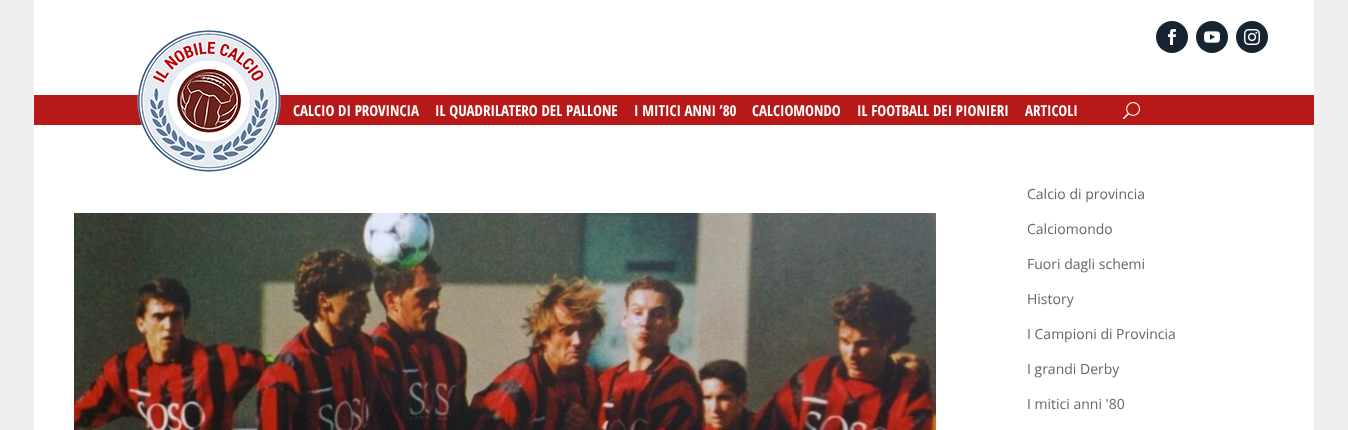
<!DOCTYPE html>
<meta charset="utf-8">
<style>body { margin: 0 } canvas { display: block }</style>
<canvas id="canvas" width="1348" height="430"></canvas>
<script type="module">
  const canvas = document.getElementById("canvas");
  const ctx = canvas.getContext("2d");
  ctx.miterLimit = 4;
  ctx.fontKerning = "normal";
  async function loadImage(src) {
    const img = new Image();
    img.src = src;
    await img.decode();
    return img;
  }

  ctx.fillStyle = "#efefef";
  ctx.fillRect(0, 0, 1348, 430);
  ctx.fillStyle = "#ffffff";
  ctx.fillRect(34, 0, 1280, 430);
  ctx.fillStyle = "#b61918";
  ctx.fillRect(34, 95, 1280, 30);
  ctx.drawImage(await loadImage("img1.png"), 137, 30, 144, 142);
  ctx.font = "bold 15px Open Sans Condensed";
  ctx.fillStyle = "#ffffff";
  ctx.fillText("CALCIO DI PROVINCIA", 293, 116);
  ctx.fillText("IL QUADRILATERO DEL PALLONE", 435, 116);
  ctx.fillText("I MITICI ANNI ’80", 634, 116);
  ctx.fillText("CALCIOMONDO", 752, 116);
  ctx.fillText("IL FOOTBALL DEI PIONIERI", 857, 116);
  ctx.fillText("ARTICOLI", 1025, 116);
  ctx.drawImage(await loadImage("img2.png"), 1123, 102, 17, 18);
  ctx.fillStyle = "#182431";
  ctx.beginPath();
  ctx.arc(1172, 37, 16, 0, Math.PI * 2);
  ctx.fill();
  ctx.drawImage(await loadImage("img3.png"), 1168, 29, 8, 16);
  ctx.beginPath();
  ctx.arc(1212, 37, 16, 0, Math.PI * 2);
  ctx.fill();
  ctx.drawImage(await loadImage("img4.png"), 1204, 31, 16, 12);
  ctx.beginPath();
  ctx.arc(1252, 37, 16, 0, Math.PI * 2);
  ctx.fill();
  ctx.drawImage(await loadImage("img5.png"), 1244, 29, 16, 16);
  ctx.drawImage(await loadImage("img6.png"), 74, 213, 862, 217);
  ctx.font = "14px Open Sans";
  ctx.fillStyle = "#666666";
  ctx.fillText("Calcio di provincia", 1027, 199);
  ctx.fillText("Calciomondo", 1027, 234);
  ctx.fillText("Fuori dagli schemi", 1027, 269);
  ctx.fillText("History", 1027, 304);
  ctx.fillText("I Campioni di Provincia", 1027, 339);
  ctx.fillText("I grandi Derby", 1027, 374);
  ctx.fillText("I mitici anni '80", 1027, 409);
</script>
